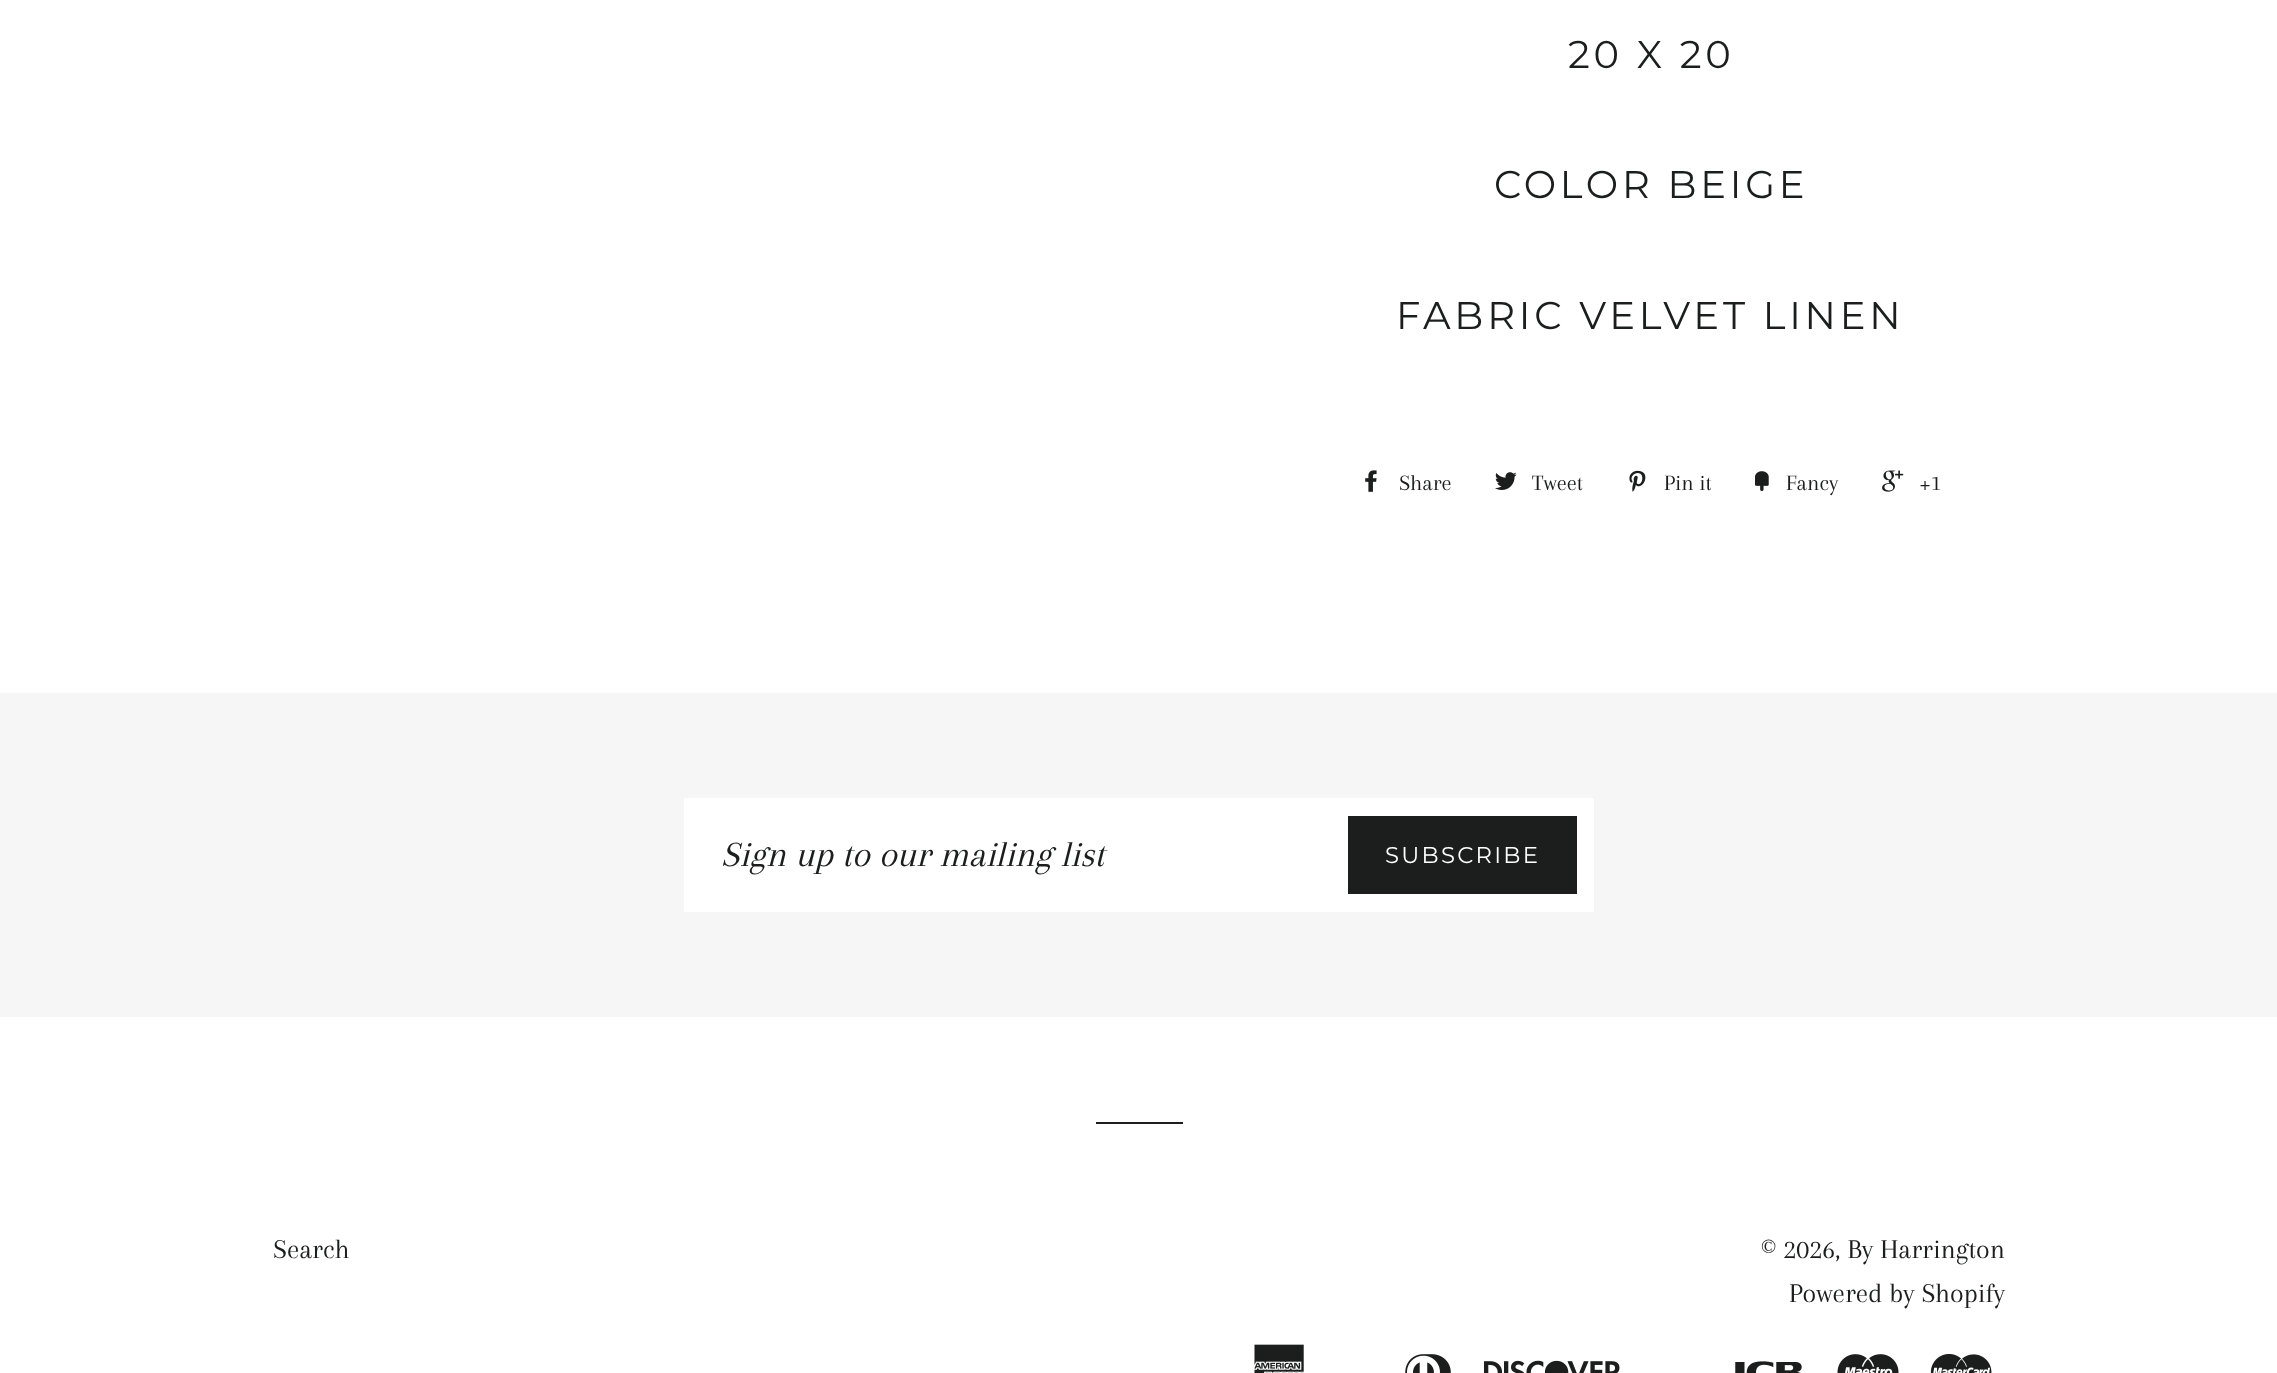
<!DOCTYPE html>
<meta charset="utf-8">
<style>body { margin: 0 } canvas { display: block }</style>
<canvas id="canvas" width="2277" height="1373"></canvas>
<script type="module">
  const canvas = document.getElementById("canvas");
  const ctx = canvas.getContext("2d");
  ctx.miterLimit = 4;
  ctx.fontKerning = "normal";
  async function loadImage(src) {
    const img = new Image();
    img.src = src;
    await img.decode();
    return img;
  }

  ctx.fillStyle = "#ffffff";
  ctx.fillRect(0, 0, 2277, 1373);
  ctx.letterSpacing = "3.8px";
  ctx.font = "100 38.5px Montserrat";
  ctx.fillStyle = "#1c1d1d";
  ctx.fillText("20 X 20", 1568, 68);
  ctx.fillText("COLOR BEIGE", 1494, 198);
  ctx.fillText("FABRIC VELVET LINEN", 1396, 329);
  ctx.drawImage(await loadImage("img1.png"), 1365, 470, 12, 22);
  ctx.letterSpacing = "0px";
  ctx.font = "22.75px Arapey";
  ctx.fillText("Share", 1399, 490);
  ctx.drawImage(await loadImage("img2.png"), 1495, 472, 22, 18);
  ctx.fillText("Tweet", 1532, 490);
  ctx.drawImage(await loadImage("img3.png"), 1629, 470, 17, 22);
  ctx.fillText("Pin it", 1664, 490);
  ctx.drawImage(await loadImage("img4.png"), 1755, 471, 14, 20);
  ctx.fillText("Fancy", 1786, 490);
  ctx.drawImage(await loadImage("img5.png"), 1882, 470, 22, 22);
  ctx.fillText("+1", 1919, 490);
  ctx.fillStyle = "#f6f6f6";
  ctx.fillRect(0, 693, 2277, 324);
  ctx.fillStyle = "#ffffff";
  ctx.fillRect(684, 798, 910, 114);
  ctx.font = "italic 36.75px Arapey";
  ctx.fillStyle = "#1c1d1d";
  ctx.fillText("Sign up to our mailing list", 721, 866);
  ctx.fillRect(1348, 816, 229, 78);
  ctx.letterSpacing = "2.25px";
  ctx.font = "100 22.75px Montserrat";
  ctx.fillStyle = "#ffffff";
  ctx.fillText("SUBSCRIBE", 1385, 863);
  ctx.fillStyle = "#1c1d1d";
  ctx.fillRect(1096, 1122, 87, 2);
  ctx.letterSpacing = "0px";
  ctx.font = "28px Arapey";
  ctx.fillText("Search", 273, 1258);
  ctx.fillText("© 2026, By Harrington", 1761, 1258);
  ctx.fillText("Powered by Shopify", 1789, 1302);
  ctx.drawImage(await loadImage("img6.png"), 1254, 1344, 50, 29);
  ctx.drawImage(await loadImage("img7.png"), 1405, 1354, 46, 19);
  ctx.drawImage(await loadImage("img8.png"), 1484, 1360, 136, 13);
  ctx.drawImage(await loadImage("img9.png"), 1735, 1361, 67, 12);
  ctx.drawImage(await loadImage("img10.png"), 1837, 1354, 62, 19);
  ctx.drawImage(await loadImage("img11.png"), 1930, 1354, 62, 19);
</script>
